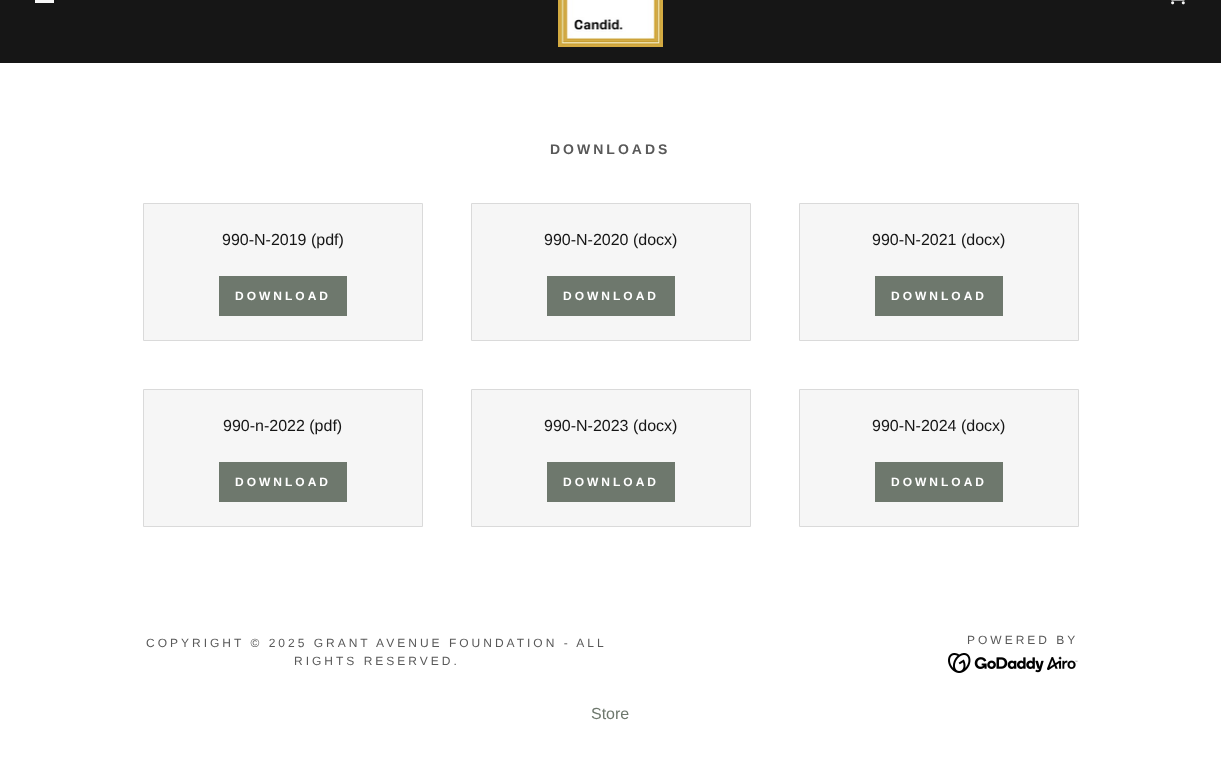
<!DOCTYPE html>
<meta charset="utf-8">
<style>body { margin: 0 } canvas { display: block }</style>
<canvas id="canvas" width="1221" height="760"></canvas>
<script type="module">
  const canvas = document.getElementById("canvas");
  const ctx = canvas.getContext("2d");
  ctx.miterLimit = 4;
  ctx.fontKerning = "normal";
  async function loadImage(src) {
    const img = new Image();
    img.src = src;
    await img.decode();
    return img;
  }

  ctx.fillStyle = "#ffffff";
  ctx.fillRect(0, 0, 1221, 760);
  ctx.fillStyle = "#161616";
  ctx.fillRect(0, 0, 1221, 63);
  ctx.fillStyle = "#f7f7f7";
  ctx.fillRect(35, 0, 19, 3);
  ctx.drawImage(await loadImage("img1.png"), 558, 0, 105, 47);
  ctx.drawImage(await loadImage("img2.png"), 1171, 0, 14, 5);
  ctx.letterSpacing = "3px";
  ctx.font = "bold 14px Liberation Sans";
  ctx.fillStyle = "#595959";
  ctx.fillText("DOWNLOADS", 550, 154);
  ctx.fillStyle = "#f6f6f6";
  ctx.beginPath();
  ctx.rect(143.5, 203.5, 279, 137);
  ctx.fill();
  ctx.strokeStyle = "#dadada";
  ctx.stroke();
  ctx.letterSpacing = "0px";
  ctx.font = "16px Liberation Sans";
  ctx.fillStyle = "#151515";
  ctx.fillText("990-N-2019 (pdf)", 222, 245);
  ctx.fillStyle = "#6e786d";
  ctx.fillRect(219, 276, 128, 40);
  ctx.letterSpacing = "3px";
  ctx.font = "bold 12px Liberation Sans";
  ctx.fillStyle = "#ffffff";
  ctx.fillText("DOWNLOAD", 235, 300);
  ctx.fillStyle = "#f6f6f6";
  ctx.beginPath();
  ctx.rect(471.5, 203.5, 279, 137);
  ctx.fill();
  ctx.stroke();
  ctx.letterSpacing = "0px";
  ctx.font = "16px Liberation Sans";
  ctx.fillStyle = "#151515";
  ctx.fillText("990-N-2020 (docx)", 544, 245);
  ctx.fillStyle = "#6e786d";
  ctx.fillRect(547, 276, 128, 40);
  ctx.letterSpacing = "3px";
  ctx.font = "bold 12px Liberation Sans";
  ctx.fillStyle = "#ffffff";
  ctx.fillText("DOWNLOAD", 563, 300);
  ctx.fillStyle = "#f6f6f6";
  ctx.beginPath();
  ctx.rect(799.5, 203.5, 279, 137);
  ctx.fill();
  ctx.stroke();
  ctx.letterSpacing = "0px";
  ctx.font = "16px Liberation Sans";
  ctx.fillStyle = "#151515";
  ctx.fillText("990-N-2021 (docx)", 872, 245);
  ctx.fillStyle = "#6e786d";
  ctx.fillRect(875, 276, 128, 40);
  ctx.letterSpacing = "3px";
  ctx.font = "bold 12px Liberation Sans";
  ctx.fillStyle = "#ffffff";
  ctx.fillText("DOWNLOAD", 891, 300);
  ctx.fillStyle = "#f6f6f6";
  ctx.beginPath();
  ctx.rect(143.5, 389.5, 279, 137);
  ctx.fill();
  ctx.stroke();
  ctx.letterSpacing = "0px";
  ctx.font = "16px Liberation Sans";
  ctx.fillStyle = "#151515";
  ctx.fillText("990-n-2022 (pdf)", 223, 431);
  ctx.fillStyle = "#6e786d";
  ctx.fillRect(219, 462, 128, 40);
  ctx.letterSpacing = "3px";
  ctx.font = "bold 12px Liberation Sans";
  ctx.fillStyle = "#ffffff";
  ctx.fillText("DOWNLOAD", 235, 486);
  ctx.fillStyle = "#f6f6f6";
  ctx.beginPath();
  ctx.rect(471.5, 389.5, 279, 137);
  ctx.fill();
  ctx.stroke();
  ctx.letterSpacing = "0px";
  ctx.font = "16px Liberation Sans";
  ctx.fillStyle = "#151515";
  ctx.fillText("990-N-2023 (docx)", 544, 431);
  ctx.fillStyle = "#6e786d";
  ctx.fillRect(547, 462, 128, 40);
  ctx.letterSpacing = "3px";
  ctx.font = "bold 12px Liberation Sans";
  ctx.fillStyle = "#ffffff";
  ctx.fillText("DOWNLOAD", 563, 486);
  ctx.fillStyle = "#f6f6f6";
  ctx.beginPath();
  ctx.rect(799.5, 389.5, 279, 137);
  ctx.fill();
  ctx.stroke();
  ctx.letterSpacing = "0px";
  ctx.font = "16px Liberation Sans";
  ctx.fillStyle = "#151515";
  ctx.fillText("990-N-2024 (docx)", 872, 431);
  ctx.fillStyle = "#6e786d";
  ctx.fillRect(875, 462, 128, 40);
  ctx.letterSpacing = "3px";
  ctx.font = "bold 12px Liberation Sans";
  ctx.fillStyle = "#ffffff";
  ctx.fillText("DOWNLOAD", 891, 486);
  ctx.font = "12px Liberation Sans";
  ctx.fillStyle = "#595959";
  ctx.fillText("COPYRIGHT © 2025 GRANT AVENUE FOUNDATION - ALL", 146, 647);
  ctx.fillText("RIGHTS RESERVED.", 294, 665);
  ctx.fillText("POWERED BY", 967, 644);
  ctx.drawImage(await loadImage("img3.png"), 948, 653, 130, 20);
  ctx.letterSpacing = "0px";
  ctx.font = "16px Liberation Sans";
  ctx.fillStyle = "#6e786d";
  ctx.fillText("Store", 591, 719);
</script>
